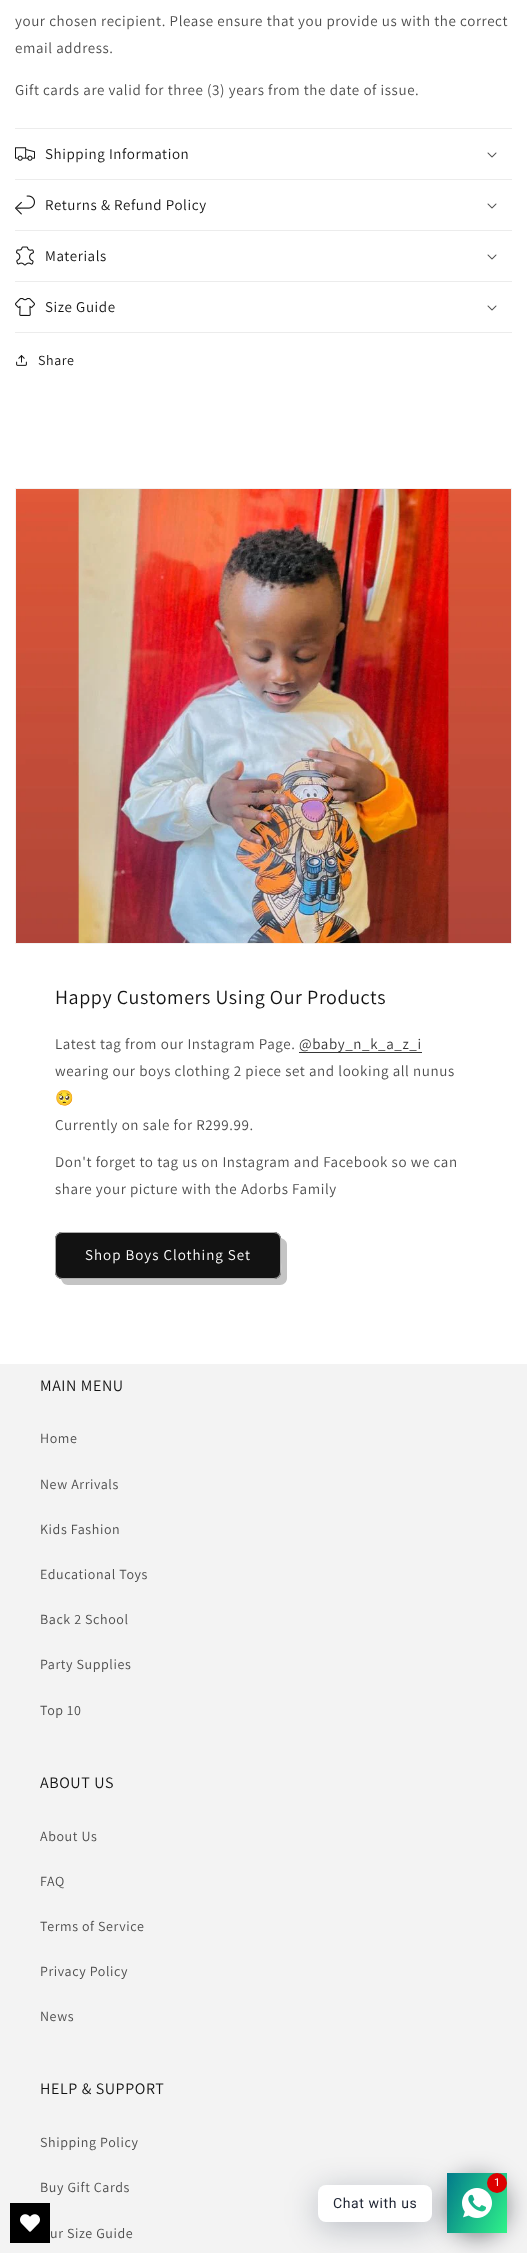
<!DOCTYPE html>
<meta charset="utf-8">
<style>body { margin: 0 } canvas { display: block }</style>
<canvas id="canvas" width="527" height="2253"></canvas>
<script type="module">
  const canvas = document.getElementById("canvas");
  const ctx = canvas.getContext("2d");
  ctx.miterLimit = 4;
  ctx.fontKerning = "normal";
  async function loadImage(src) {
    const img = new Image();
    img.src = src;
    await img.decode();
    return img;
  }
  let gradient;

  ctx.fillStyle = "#ffffff";
  ctx.fillRect(0, 0, 527, 2253);
  ctx.letterSpacing = "0.6px";
  ctx.font = "15px Assistant";
  ctx.fillStyle = "#4d4d4d";
  ctx.fillText("your chosen recipient. Please ensure that you provide us with the correct", 15, 26);
  ctx.fillText("email address.", 15, 53);
  ctx.fillText("Gift cards are valid for three (3) years from the date of issue.", 15, 95);
  ctx.fillStyle = "#ececec";
  ctx.fillRect(15, 128, 497, 1);
  ctx.fillRect(15, 179, 497, 1);
  ctx.drawImage(await loadImage("img1.png"), 15, 147, 20, 14);
  ctx.fillStyle = "#121212";
  ctx.fillText("Shipping Information", 45, 159);
  ctx.drawImage(await loadImage("img2.png"), 487, 152, 10, 6);
  ctx.fillStyle = "#ececec";
  ctx.fillRect(15, 230, 497, 1);
  ctx.drawImage(await loadImage("img3.png"), 15, 195, 20, 20);
  ctx.fillStyle = "#121212";
  ctx.fillText("Returns & Refund Policy", 45, 210);
  ctx.drawImage(await loadImage("img2.png"), 487, 203, 10, 6);
  ctx.fillStyle = "#ececec";
  ctx.fillRect(15, 281, 497, 1);
  ctx.drawImage(await loadImage("img4.png"), 16, 246, 18, 20);
  ctx.fillStyle = "#121212";
  ctx.fillText("Materials", 45, 261);
  ctx.drawImage(await loadImage("img2.png"), 487, 254, 10, 6);
  ctx.fillStyle = "#ececec";
  ctx.fillRect(15, 332, 497, 1);
  ctx.drawImage(await loadImage("img5.png"), 15, 298, 20, 18);
  ctx.fillStyle = "#121212";
  ctx.fillText("Size Guide", 45, 312);
  ctx.drawImage(await loadImage("img2.png"), 487, 305, 10, 6);
  ctx.drawImage(await loadImage("img6.png"), 16, 355, 11, 11);
  ctx.font = "14px Assistant";
  ctx.fillText("Share", 38, 365);
  ctx.strokeStyle = "#f3f3f3";
  ctx.strokeRect(15.5, 488.5, 496, 455);
  ctx.drawImage(await loadImage("img7.png"), 16, 489, 495, 454);
  ctx.font = "20px Assistant";
  ctx.fillText("Happy Customers Using Our Products", 55, 1004);
  ctx.font = "15px Assistant";
  ctx.fillStyle = "#4d4d4d";
  ctx.fillText("Latest tag from our Instagram Page.", 55, 1049);
  ctx.fillStyle = "#363636";
  ctx.fillRect(299, 1052, 123, 1);
  ctx.fillStyle = "#353535";
  ctx.fillText("@baby_n_k_a_z_i", 299, 1049);
  ctx.fillStyle = "#4d4d4d";
  ctx.fillText("wearing our boys clothing 2 piece set and looking all nunus", 55, 1076);
  ctx.font = "15px Noto Color Emoji";
  ctx.fillText("🥺", 55, 1103);
  ctx.font = "15px Assistant";
  ctx.fillText("Currently on sale for R299.99.", 55, 1130);
  ctx.fillText("Don't forget to tag us on Instagram and Facebook so we can", 55, 1167);
  ctx.fillText("share your picture with the Adorbs Family", 55, 1194);
  ctx.fillStyle = "#c4c4c4";
  ctx.beginPath();
  ctx.moveTo(61, 1279);
  ctx.bezierCurveTo(62, 1282, 64, 1285, 68, 1285);
  ctx.lineTo(280, 1285);
  ctx.bezierCurveTo(284, 1285, 287, 1282, 287, 1278);
  ctx.lineTo(287, 1245);
  ctx.bezierCurveTo(287, 1241, 284, 1239, 281, 1238);
  ctx.lineTo(281, 1261);
  ctx.bezierCurveTo(281, 1267, 283, 1279, 274, 1279);
  ctx.closePath();
  ctx.fill();
  ctx.fillStyle = "#121212";
  ctx.beginPath();
  ctx.roundRect(55, 1232, 226, 47, 7);
  ctx.fill();
  ctx.beginPath();
  ctx.roundRect(55.5, 1232.5, 225, 46, 6.5);
  ctx.strokeStyle = "#121212";
  ctx.stroke();
  ctx.beginPath();
  ctx.roundRect(55.5, 1232.5, 225, 46, 6.5);
  ctx.strokeStyle = "rgba(255, 255, 255, 0.65)";
  ctx.stroke();
  ctx.letterSpacing = "1px";
  ctx.fillStyle = "#ffffff";
  ctx.fillText("Shop Boys Clothing Set", 85, 1260);
  ctx.fillStyle = "#f3f3f3";
  ctx.fillRect(0, 1364, 527, 889);
  ctx.letterSpacing = "0.6px";
  ctx.font = "16px Assistant";
  ctx.fillStyle = "#121212";
  ctx.fillText("MAIN MENU", 40, 1391);
  ctx.font = "14px Assistant";
  ctx.fillStyle = "#4d4d4d";
  ctx.fillText("Home", 40, 1443);
  ctx.fillText("New Arrivals", 40, 1489);
  ctx.fillText("Kids Fashion", 40, 1534);
  ctx.fillText("Educational Toys", 40, 1579);
  ctx.fillText("Back 2 School", 40, 1624);
  ctx.fillText("Party Supplies", 40, 1669);
  ctx.fillText("Top 10", 40, 1715);
  ctx.font = "16px Assistant";
  ctx.fillStyle = "#121212";
  ctx.fillText("ABOUT US", 40, 1788);
  ctx.font = "14px Assistant";
  ctx.fillStyle = "#4d4d4d";
  ctx.fillText("About Us", 40, 1841);
  ctx.fillText("FAQ", 40, 1886);
  ctx.fillText("Terms of Service", 40, 1931);
  ctx.fillText("Privacy Policy", 40, 1976);
  ctx.fillText("News", 40, 2021);
  ctx.font = "16px Assistant";
  ctx.fillStyle = "#121212";
  ctx.fillText("HELP & SUPPORT", 40, 2094);
  ctx.font = "14px Assistant";
  ctx.fillStyle = "#4d4d4d";
  ctx.fillText("Shipping Policy", 40, 2147);
  ctx.fillText("Buy Gift Cards", 40, 2192);
  ctx.fillText("ur Size Guide", 50, 2238);
  ctx.fillStyle = "rgba(2, 6, 16, 0.5)";
  ctx.filter = "blur(12px)";
  ctx.beginPath();
  ctx.roundRect(447, 2177, 60, 60, 30);
  ctx.fill();
  ctx.filter = "none";
  gradient = ctx.createLinearGradient(441, 2186, 513, 2220);
  gradient.addColorStop(0, "#047c8d");
  gradient.addColorStop(1, "#2ff289");
  ctx.fillStyle = gradient;
  ctx.fillRect(447, 2173, 60, 60);
  ctx.fillStyle = "rgba(0, 18, 46, 0.24)";
  ctx.filter = "blur(16px)";
  ctx.beginPath();
  ctx.roundRect(318, 2191, 114, 37, 8);
  ctx.fill();
  ctx.filter = "none";
  ctx.drawImage(await loadImage("img8.png"), 462, 2188, 30, 30);
  ctx.fillStyle = "#dd0000";
  ctx.beginPath();
  ctx.arc(497, 2183, 10, 0, Math.PI * 2);
  ctx.fill();
  ctx.font = "11px Roboto";
  ctx.fillStyle = "#ffffff";
  ctx.fillText("1", 494, 2186);
  ctx.beginPath();
  ctx.roundRect(318, 2185, 114, 37, 8);
  ctx.fill();
  ctx.font = "14px Roboto";
  ctx.fillStyle = "#1e2433";
  ctx.fillText("Chat with us", 333, 2208);
  ctx.fillStyle = "#000000";
  ctx.fillRect(10, 2203, 40, 40);
  ctx.drawImage(await loadImage("img9.png"), 20, 2214, 20, 18);
</script>
